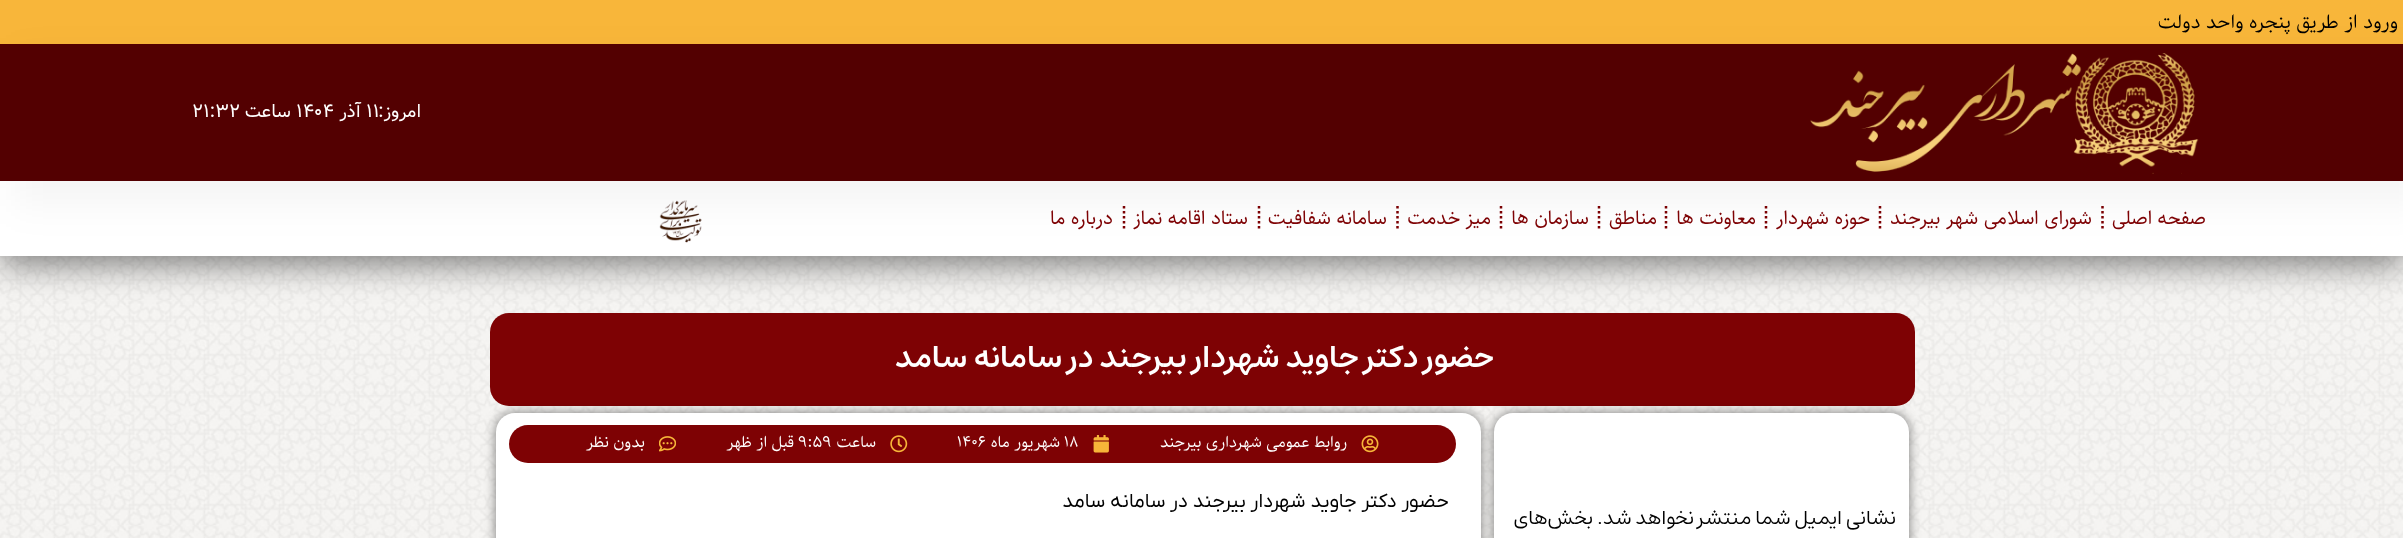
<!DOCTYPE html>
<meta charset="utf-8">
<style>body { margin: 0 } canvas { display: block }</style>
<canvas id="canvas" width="2403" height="538"></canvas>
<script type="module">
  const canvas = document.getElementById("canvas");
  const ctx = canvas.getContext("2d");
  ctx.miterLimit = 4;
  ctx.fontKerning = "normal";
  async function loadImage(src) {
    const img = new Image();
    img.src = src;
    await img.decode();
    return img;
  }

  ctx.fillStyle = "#ffffff";
  ctx.fillRect(0, 0, 2403, 538);
  ctx.drawImage(await loadImage("img1.png"), 0, 256, 2403, 282);
  ctx.fillStyle = "#f8b63a";
  ctx.fillRect(0, 0, 2403, 44);
  ctx.direction = "rtl";
  ctx.font = "20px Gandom";
  ctx.fillStyle = "#000000";
  ctx.fillText("ورود از طریق پنجره واحد دولت", 2398, 28);
  ctx.fillStyle = "#7e0204";
  ctx.beginPath();
  ctx.roundRect(490, 313, 1425, 93, 19);
  ctx.fill();
  ctx.fillStyle = "rgba(0, 0, 0, 0.5)";
  ctx.filter = "blur(17.5px)";
  ctx.beginPath();
  ctx.rect(0, 189, 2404, 75);
  ctx.fill();
  ctx.filter = "none";
  ctx.fillStyle = "#ffffff";
  ctx.fillRect(0, 181, 2403, 75);
  ctx.beginPath();
  ctx.moveTo(2102.5, 206);
  ctx.lineTo(2102.5, 231);
  ctx.strokeStyle = "#7e0204";
  ctx.lineWidth = 2.5;
  ctx.setLineDash([2.5, 2.5]);
  ctx.stroke();
  ctx.beginPath();
  ctx.moveTo(1880, 206);
  ctx.lineTo(1880, 231);
  ctx.stroke();
  ctx.beginPath();
  ctx.moveTo(1766, 206);
  ctx.lineTo(1766, 231);
  ctx.stroke();
  ctx.beginPath();
  ctx.moveTo(1666, 206);
  ctx.lineTo(1666, 231);
  ctx.stroke();
  ctx.beginPath();
  ctx.moveTo(1599, 206);
  ctx.lineTo(1599, 231);
  ctx.stroke();
  ctx.beginPath();
  ctx.moveTo(1501, 206);
  ctx.lineTo(1501, 231);
  ctx.stroke();
  ctx.beginPath();
  ctx.moveTo(1397.5, 206);
  ctx.lineTo(1397.5, 231);
  ctx.stroke();
  ctx.beginPath();
  ctx.moveTo(1259, 206);
  ctx.lineTo(1259, 231);
  ctx.stroke();
  ctx.beginPath();
  ctx.moveTo(1124, 206);
  ctx.lineTo(1124, 231);
  ctx.stroke();
  ctx.drawImage(await loadImage("img3.png"), 659, 200, 43, 43);
  ctx.fillStyle = "rgba(0, 0, 0, 0.04)";
  ctx.filter = "blur(19px)";
  ctx.beginPath();
  ctx.rect(13, 56, 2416, 150);
  ctx.fill();
  ctx.filter = "none";
  ctx.fillStyle = "#530001";
  ctx.fillRect(0, 44, 2403, 137);
  ctx.drawImage(await loadImage("img2.png"), 1810, 53, 389, 121);
  ctx.font = "19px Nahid";
  ctx.fillStyle = "#ffffff";
  ctx.fillText("امروز:", 421, 117);
  ctx.direction = "ltr";
  ctx.fillText("۱۱", 366, 117);
  ctx.direction = "rtl";
  ctx.fillText("آذر", 361, 117);
  ctx.direction = "ltr";
  ctx.fillText("۱۴۰۴", 296, 117);
  ctx.direction = "rtl";
  ctx.fillText("ساعت", 291, 117);
  ctx.direction = "ltr";
  ctx.fillText("۲۱:۳۲", 192, 117);
  ctx.direction = "rtl";
  ctx.font = "20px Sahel";
  ctx.fillStyle = "#7e0204";
  ctx.fillText("صفحه اصلی", 2206, 224);
  ctx.fillText("شورای اسلامی شهر بیرجند", 2092, 224);
  ctx.fillText("حوزه شهردار", 1870, 224);
  ctx.fillText("معاونت ها", 1756, 224);
  ctx.fillText("مناطق", 1657, 224);
  ctx.fillText("سازمان ها", 1589, 224);
  ctx.fillText("میز خدمت", 1491, 224);
  ctx.fillText("سامانه شفافیت", 1387, 224);
  ctx.fillText("ستاد اقامه نماز", 1248, 224);
  ctx.fillText("درباره ما", 1113, 224);
  ctx.font = "600 31.25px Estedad";
  ctx.fillStyle = "#ffffff";
  ctx.fillText("حضور دکتر جاوید شهردار بیرجند در سامانه سامد", 1494, 367);
  ctx.fillStyle = "rgba(0, 0, 0, 0.5)";
  ctx.filter = "blur(6px)";
  ctx.beginPath();
  ctx.roundRect(1494, 413, 415, 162, 19);
  ctx.fill();
  ctx.filter = "none";
  ctx.fillStyle = "#ffffff";
  ctx.beginPath();
  ctx.roundRect(1494, 413, 415, 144, 19);
  ctx.fill();
  ctx.fillStyle = "rgba(0, 0, 0, 0.5)";
  ctx.filter = "blur(6px)";
  ctx.beginPath();
  ctx.roundRect(496, 413, 985, 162, 19);
  ctx.fill();
  ctx.filter = "none";
  ctx.fillStyle = "#ffffff";
  ctx.beginPath();
  ctx.roundRect(496, 413, 985, 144, 19);
  ctx.fill();
  ctx.fillStyle = "#7e0204";
  ctx.beginPath();
  ctx.roundRect(509, 425, 947, 38, 19);
  ctx.fill();
  ctx.drawImage(await loadImage("img4.png"), 1361, 435, 18, 18);
  ctx.font = "16.25px Gandom";
  ctx.fillStyle = "#ffffff";
  ctx.fillText("روابط عمومی شهرداری بیرجند", 1347, 447);
  ctx.drawImage(await loadImage("img5.png"), 1093, 435, 16, 18);
  ctx.direction = "ltr";
  ctx.font = "16.25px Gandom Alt";
  ctx.fillText("18", 1064, 447);
  ctx.direction = "rtl";
  ctx.font = "16.25px Gandom";
  ctx.fillText("شهریور ماه", 1060, 447);
  ctx.direction = "ltr";
  ctx.font = "16.25px Gandom Alt";
  ctx.fillText("1406", 957, 447);
  ctx.drawImage(await loadImage("img6.png"), 890, 435, 18, 18);
  ctx.direction = "rtl";
  ctx.font = "16.25px Gandom";
  ctx.fillText("ساعت", 876, 447);
  ctx.direction = "ltr";
  ctx.font = "16.25px Gandom Alt";
  ctx.fillText("9:59", 798, 447);
  ctx.direction = "rtl";
  ctx.font = "16.25px Gandom";
  ctx.fillText("قبل از ظهر", 794, 447);
  ctx.drawImage(await loadImage("img7.png"), 659, 436, 17, 16);
  ctx.fillText("بدون نظر", 645, 447);
  ctx.font = "20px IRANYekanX";
  ctx.fillStyle = "#000000";
  ctx.fillText("حضور دکتر جاوید شهردار بیرجند در سامانه سامد", 1449, 507);
  ctx.font = "20px Estedad";
  ctx.fillText("نشانی ایمیل شما منتشر نخواهد شد.", 1896, 524);
  ctx.fillText("بخش‌های", 1593, 524);
</script>
